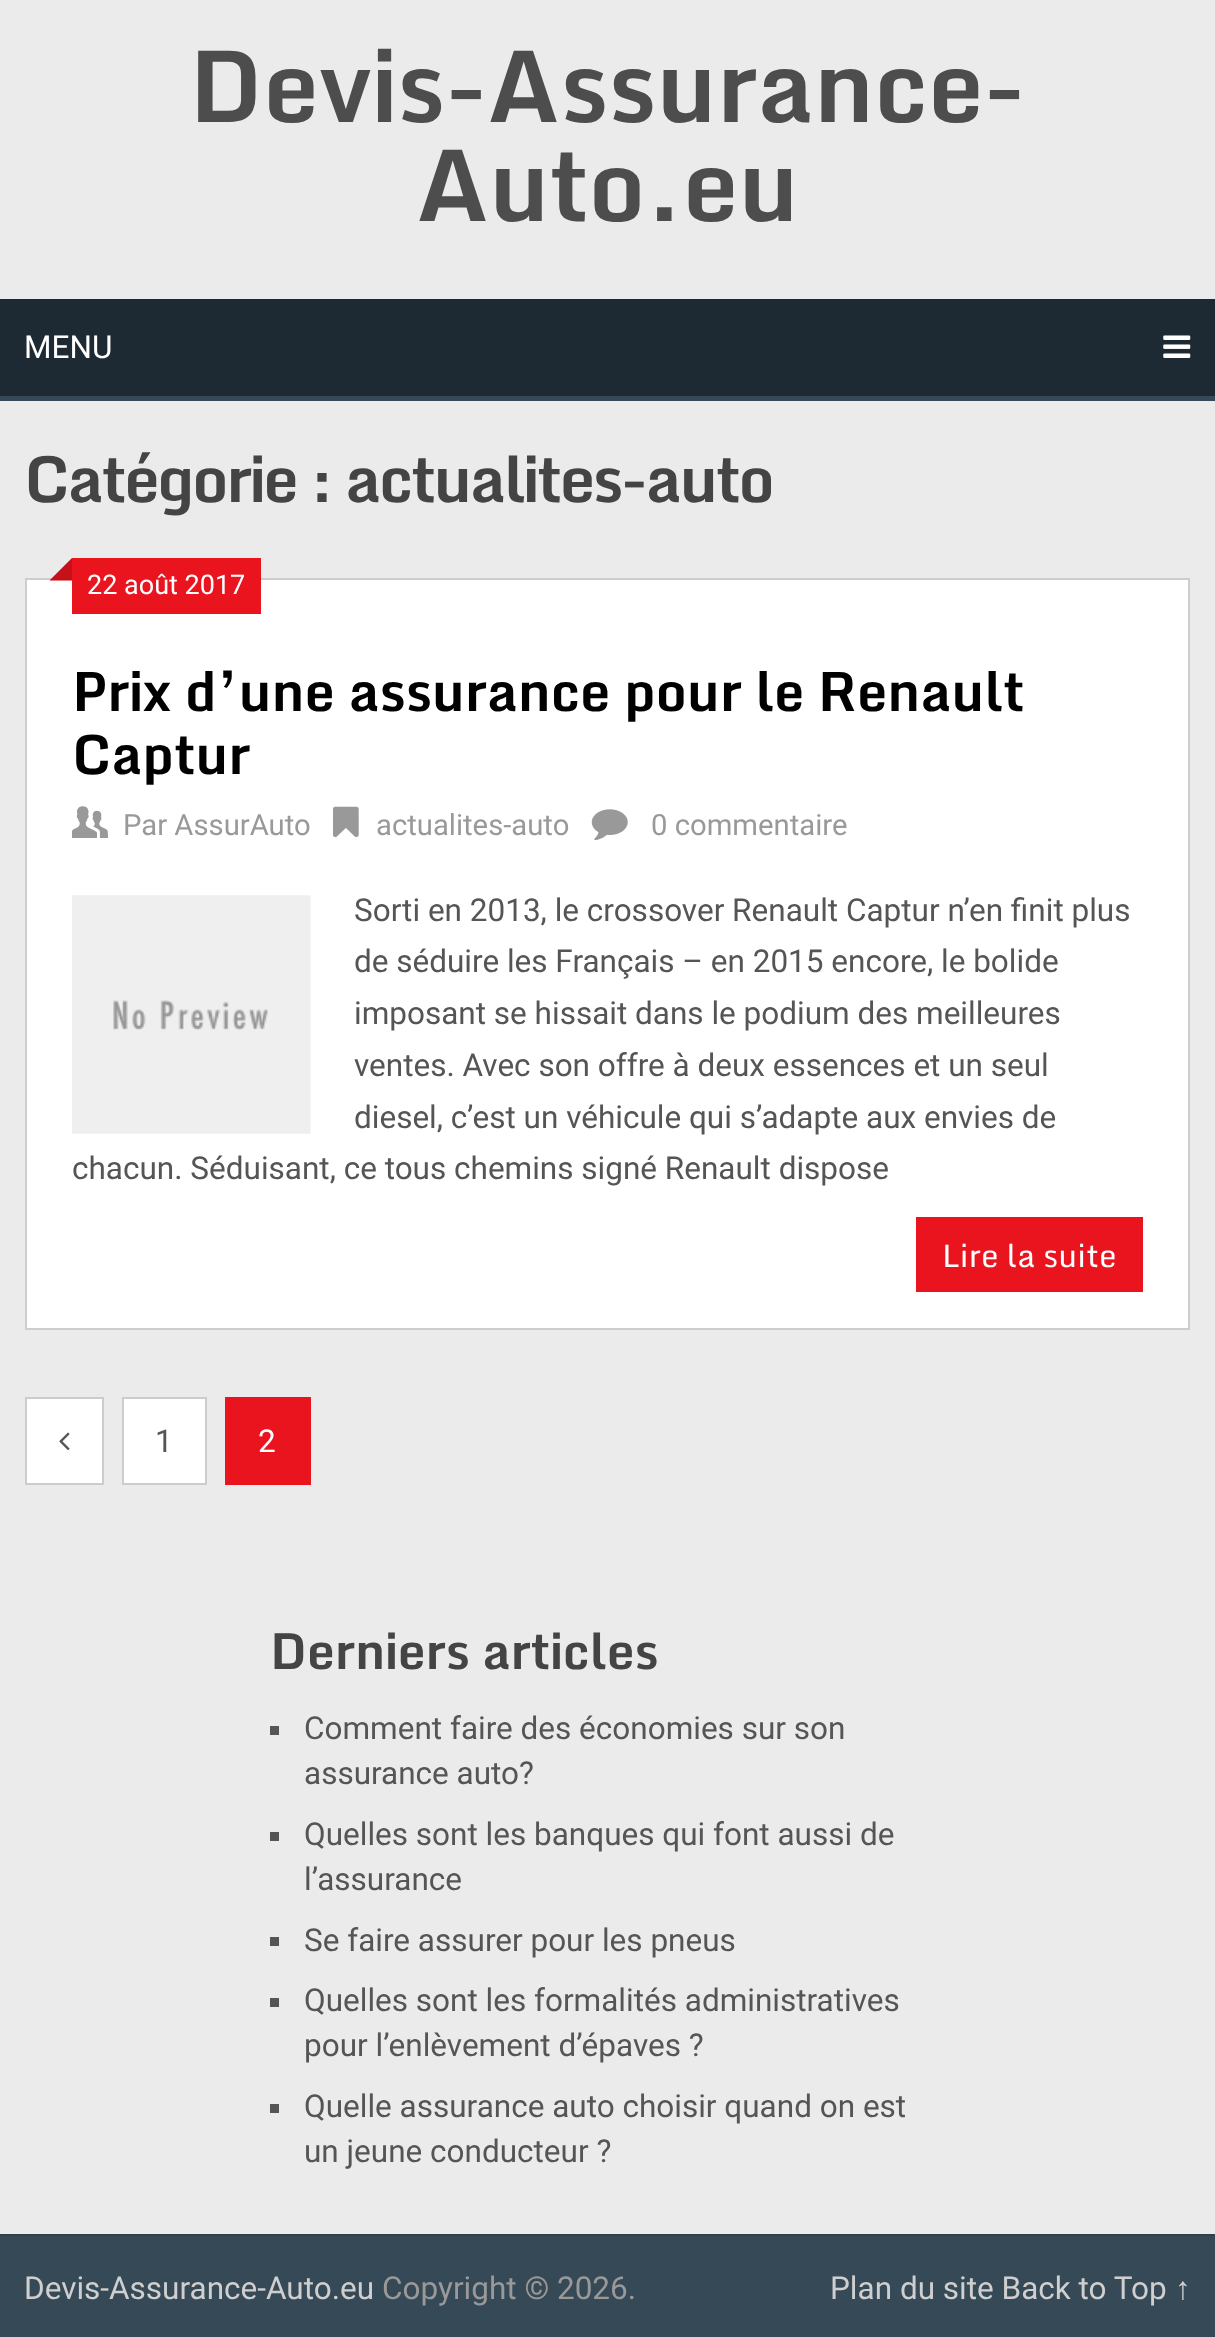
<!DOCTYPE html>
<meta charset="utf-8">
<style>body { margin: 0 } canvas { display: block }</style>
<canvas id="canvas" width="1215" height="2337"></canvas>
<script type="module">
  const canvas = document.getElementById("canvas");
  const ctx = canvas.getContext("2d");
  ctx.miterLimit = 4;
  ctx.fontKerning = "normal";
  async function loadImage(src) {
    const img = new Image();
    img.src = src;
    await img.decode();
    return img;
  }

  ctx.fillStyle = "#ebebeb";
  ctx.fillRect(0, 0, 1215, 2337);
  ctx.font = "bold 99px Monda";
  ctx.fillStyle = "#4d4d4d";
  ctx.fillText("Devis-Assurance-", 189, 122);
  ctx.fillText("Auto.eu", 416, 221);
  ctx.fillStyle = "#364956";
  ctx.fillRect(0, 396, 1215, 5);
  ctx.fillStyle = "#1d2933";
  ctx.fillRect(0, 299, 1215, 97);
  ctx.font = "31.5px Roboto";
  ctx.fillStyle = "#ffffff";
  ctx.fillText("MENU", 24, 358);
  ctx.drawImage(await loadImage("img1.png"), 1163, 335, 28, 23);
  ctx.letterSpacing = "-2.25px";
  ctx.font = "bold 63px Monda";
  ctx.fillStyle = "#444444";
  ctx.fillText("Catégorie : actualites-auto", 24, 502);
  ctx.fillStyle = "#ffffff";
  ctx.beginPath();
  ctx.rect(26, 579, 1163, 750);
  ctx.fill();
  ctx.strokeStyle = "#cdcdcd";
  ctx.lineWidth = 2;
  ctx.stroke();
  ctx.fillStyle = "#ea141f";
  ctx.fillRect(72, 558, 189, 56);
  ctx.beginPath();
  ctx.moveTo(72, 580.5);
  ctx.lineTo(49.5, 580.5);
  ctx.lineTo(72, 558);
  ctx.closePath();
  ctx.fill();
  ctx.fillStyle = "rgba(0, 0, 0, 0.15)";
  ctx.beginPath();
  ctx.moveTo(72, 580.5);
  ctx.lineTo(49.5, 580.5);
  ctx.lineTo(72, 558);
  ctx.closePath();
  ctx.fill();
  ctx.letterSpacing = "0px";
  ctx.font = "27px Roboto";
  ctx.fillStyle = "#ffffff";
  ctx.fillText("22 août 2017", 87, 594);
  ctx.font = "bold 54px Monda";
  ctx.fillStyle = "#000000";
  ctx.fillText("Prix d’une assurance pour le Renault", 72, 711);
  ctx.fillText("Captur", 72, 774);
  ctx.drawImage(await loadImage("img2.png"), 72, 806, 36, 32);
  ctx.font = "29.25px Roboto";
  ctx.fillStyle = "#999999";
  ctx.fillText("Par AssurAuto", 123, 835);
  ctx.drawImage(await loadImage("img3.png"), 333, 806, 26, 32);
  ctx.fillText("actualites-auto", 376, 835);
  ctx.drawImage(await loadImage("img4.png"), 591, 809, 37, 32);
  ctx.fillText("0 commentaire", 651, 835);
  ctx.drawImage(await loadImage("img5.png"), 72, 895, 239, 239);
  ctx.font = "31.5px Roboto";
  ctx.fillStyle = "#555555";
  ctx.fillText("Sorti en 2013, le crossover Renault Captur n’en finit plus", 354, 921);
  ctx.fillText("de séduire les Français – en 2015 encore, le bolide", 354, 972);
  ctx.fillText("imposant se hissait dans le podium des meilleures", 354, 1024);
  ctx.fillText("ventes. Avec son offre à deux essences et un seul", 354, 1076);
  ctx.fillText("diesel, c’est un véhicule qui s’adapte aux envies de", 354, 1128);
  ctx.fillText("chacun. Séduisant, ce tous chemins signé Renault dispose", 72, 1179);
  ctx.fillStyle = "#ea141f";
  ctx.fillRect(916, 1217, 227, 75);
  ctx.font = "31.5px Monda";
  ctx.fillStyle = "#ffffff";
  ctx.fillText("Lire la suite", 942, 1267);
  ctx.beginPath();
  ctx.rect(26, 1398, 77, 86);
  ctx.fill();
  ctx.strokeStyle = "#cccccc";
  ctx.stroke();
  ctx.drawImage(await loadImage("img6.png"), 59, 1432, 11, 18);
  ctx.beginPath();
  ctx.rect(123, 1398, 83, 86);
  ctx.fill();
  ctx.stroke();
  ctx.font = "31.5px Roboto";
  ctx.fillStyle = "#555555";
  ctx.fillText("1", 155, 1452);
  ctx.fillStyle = "#ea141f";
  ctx.fillRect(225, 1397, 86, 88);
  ctx.fillStyle = "#ffffff";
  ctx.fillText("2", 258, 1452);
  ctx.font = "bold 49.5px Monda";
  ctx.fillStyle = "#444444";
  ctx.fillText("Derniers articles", 270, 1669);
  ctx.fillStyle = "#555555";
  ctx.fillRect(270, 1726, 9, 9);
  ctx.font = "31.5px Roboto";
  ctx.fillText("Comment faire des économies sur son", 304, 1739);
  ctx.fillText("assurance auto?", 304, 1784);
  ctx.fillRect(270, 1832, 9, 9);
  ctx.fillText("Quelles sont les banques qui font aussi de", 304, 1845);
  ctx.fillText("l’assurance", 304, 1890);
  ctx.fillRect(270, 1937, 9, 9);
  ctx.fillText("Se faire assurer pour les pneus", 304, 1951);
  ctx.fillRect(270, 1998, 9, 9);
  ctx.fillText("Quelles sont les formalités administratives", 304, 2011);
  ctx.fillText("pour l’enlèvement d’épaves ?", 304, 2056);
  ctx.fillRect(270, 2104, 9, 9);
  ctx.fillText("Quelle assurance auto choisir quand on est", 304, 2117);
  ctx.fillText("un jeune conducteur ?", 304, 2162);
  ctx.fillStyle = "#364956";
  ctx.fillRect(0, 2236, 1215, 101);
  ctx.fillStyle = "#30404c";
  ctx.fillRect(0, 2234, 1215, 2);
  ctx.fillStyle = "#cfcfcf";
  ctx.fillText("Devis-Assurance-Auto.eu", 24, 2299);
  ctx.fillStyle = "#999999";
  ctx.fillText("Copyright © 2026.", 382, 2299);
  ctx.fillStyle = "#cfcfcf";
  ctx.fillText("Plan du site Back to Top", 830, 2299);
  ctx.font = "31.5px Liberation Sans";
  ctx.fillText("↑", 1175, 2299);
</script>
